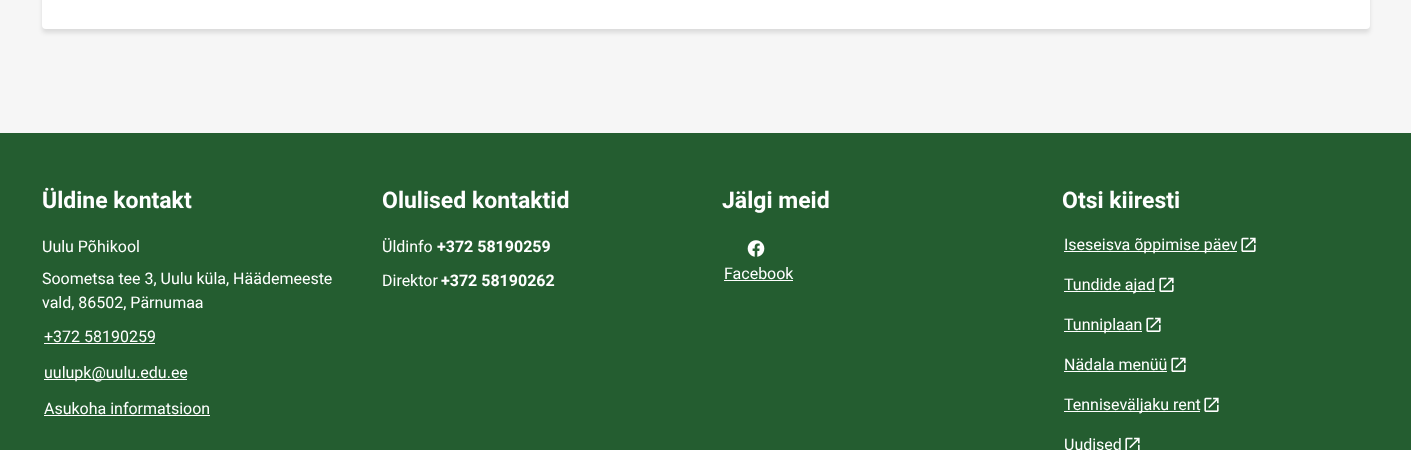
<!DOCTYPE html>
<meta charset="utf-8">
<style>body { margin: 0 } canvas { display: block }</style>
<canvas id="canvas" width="1411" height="450"></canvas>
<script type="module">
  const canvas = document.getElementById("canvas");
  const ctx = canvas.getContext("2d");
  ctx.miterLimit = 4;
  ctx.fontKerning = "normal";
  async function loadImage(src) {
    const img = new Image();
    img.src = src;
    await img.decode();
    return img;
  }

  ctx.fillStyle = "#f6f6f6";
  ctx.fillRect(0, 0, 1411, 450);
  ctx.fillStyle = "rgba(0, 0, 0, 0.1)";
  ctx.filter = "blur(2px)";
  ctx.beginPath();
  ctx.roundRect(42, -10, 1328, 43, 4);
  ctx.fill();
  ctx.filter = "none";
  ctx.fillStyle = "#ffffff";
  ctx.beginPath();
  ctx.roundRect(42, -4, 1328, 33, 4);
  ctx.fill();
  ctx.fillStyle = "#245d30";
  ctx.fillRect(0, 133, 1411, 317);
  ctx.font = "bold 23px Roboto";
  ctx.fillStyle = "#ffffff";
  ctx.fillText("Üldine kontakt", 42, 208);
  ctx.font = "16px Roboto";
  ctx.fillText("Uulu Põhikool", 42, 252);
  ctx.fillText("Soometsa tee 3, Uulu küla, Häädemeeste", 42, 284);
  ctx.fillText("vald, 86502, Pärnumaa", 42, 308);
  ctx.fillText("+372 58190259", 44, 342);
  ctx.fillRect(44, 343, 111, 1);
  ctx.fillRect(44, 379, 143, 1);
  ctx.fillText("uulupk@uulu.edu.ee", 44, 378);
  ctx.fillText("Asukoha informatsioon", 44, 414);
  ctx.fillRect(44, 415, 166, 1);
  ctx.font = "bold 23px Roboto";
  ctx.fillText("Olulised kontaktid", 382, 208);
  ctx.font = "16px Roboto";
  ctx.fillText("Üldinfo", 382, 252);
  ctx.font = "bold 16px Roboto";
  ctx.fillText("+372 58190259", 437, 252);
  ctx.font = "16px Roboto";
  ctx.fillText("Direktor", 382, 286);
  ctx.font = "bold 16px Roboto";
  ctx.fillText("+372 58190262", 441, 286);
  ctx.font = "bold 23px Roboto";
  ctx.fillText("Jälgi meid", 722, 208);
  ctx.drawImage(await loadImage("img1.png"), 747, 240, 18, 17);
  ctx.font = "16px Roboto";
  ctx.fillText("Facebook", 724, 279);
  ctx.fillRect(724, 280, 69, 1);
  ctx.font = "bold 23px Roboto";
  ctx.fillText("Otsi kiiresti", 1062, 208);
  ctx.fillRect(1064, 251, 173, 1);
  ctx.font = "16px Roboto";
  ctx.fillText("Iseseisva õppimise päev", 1064, 250);
  ctx.drawImage(await loadImage("img2.png"), 1241, 237, 15, 15);
  ctx.fillRect(1064, 291, 91, 1);
  ctx.fillText("Tundide ajad", 1064, 290);
  ctx.drawImage(await loadImage("img2.png"), 1159, 277, 15, 15);
  ctx.fillRect(1064, 331, 78, 1);
  ctx.fillText("Tunniplaan", 1064, 330);
  ctx.drawImage(await loadImage("img2.png"), 1146, 317, 15, 15);
  ctx.fillText("Nädala menüü", 1064, 370);
  ctx.fillRect(1064, 371, 103, 1);
  ctx.drawImage(await loadImage("img2.png"), 1171, 357, 15, 15);
  ctx.fillRect(1064, 411, 136, 1);
  ctx.fillText("Tenniseväljaku rent", 1064, 410);
  ctx.drawImage(await loadImage("img2.png"), 1204, 397, 15, 15);
  ctx.fillText("Uudised", 1064, 450);
  ctx.drawImage(await loadImage("img3.png"), 1125, 437, 15, 13);
</script>
